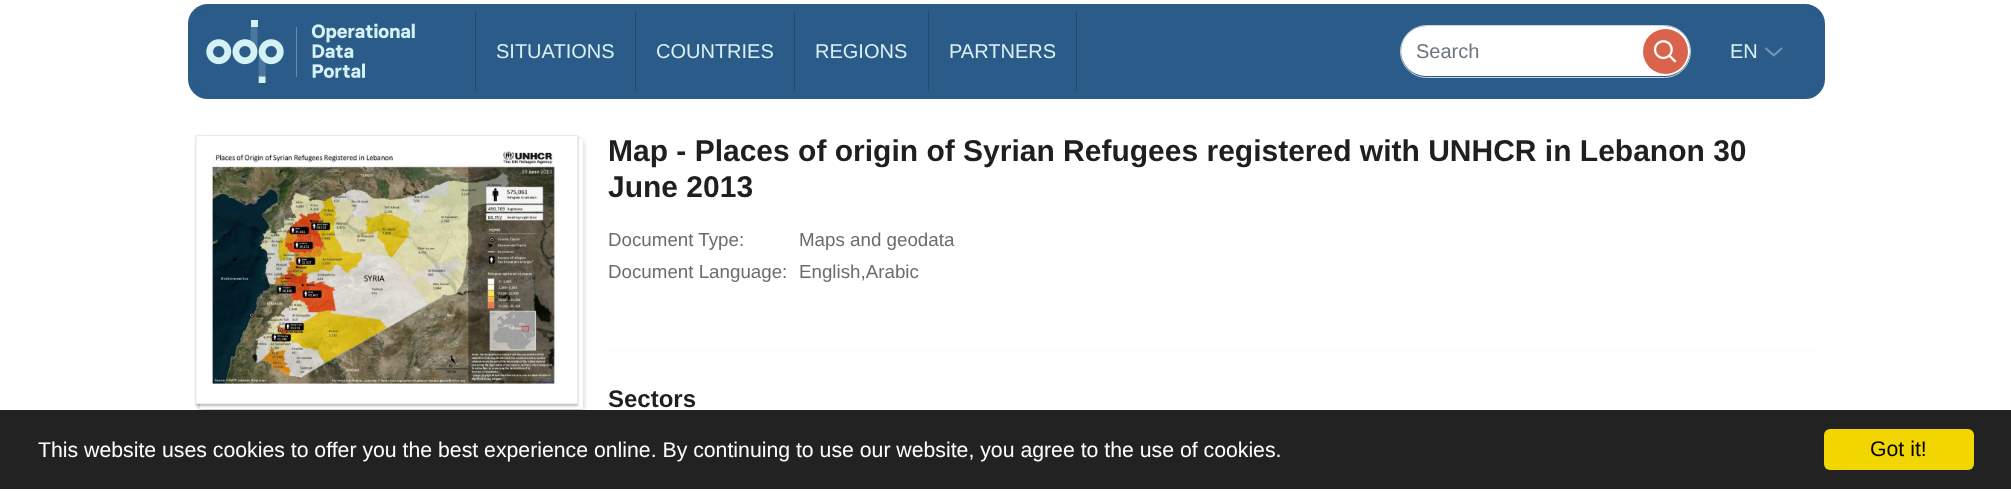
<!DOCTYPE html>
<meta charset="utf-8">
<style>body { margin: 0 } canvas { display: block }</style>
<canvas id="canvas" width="2011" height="492"></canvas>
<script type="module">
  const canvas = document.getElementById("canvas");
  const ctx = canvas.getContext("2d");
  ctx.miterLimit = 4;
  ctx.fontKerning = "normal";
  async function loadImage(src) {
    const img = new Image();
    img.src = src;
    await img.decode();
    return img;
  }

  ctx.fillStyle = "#ffffff";
  ctx.fillRect(0, 0, 2011, 492);
  ctx.fillStyle = "#2a5b89";
  ctx.beginPath();
  ctx.roundRect(190, 6, 1633, 91, 18);
  ctx.fill();
  ctx.strokeStyle = "#2a5b89";
  ctx.lineWidth = 4;
  ctx.stroke();
  ctx.drawImage(await loadImage("img1.png"), 206, 20, 209, 63);
  ctx.fillStyle = "#22496e";
  ctx.fillRect(475, 11, 1, 80);
  ctx.font = "20px Liberation Sans";
  ctx.fillStyle = "#daf0f3";
  ctx.fillText("SITUATIONS", 496, 58);
  ctx.fillStyle = "#22496e";
  ctx.fillRect(635, 11, 1, 80);
  ctx.fillStyle = "#daf0f3";
  ctx.fillText("COUNTRIES", 656, 58);
  ctx.fillStyle = "#22496e";
  ctx.fillRect(794, 11, 1, 80);
  ctx.fillStyle = "#daf0f3";
  ctx.fillText("REGIONS", 815, 58);
  ctx.fillStyle = "#22496e";
  ctx.fillRect(1076, 11, 1, 80);
  ctx.fillRect(928, 11, 1, 80);
  ctx.fillStyle = "#daf0f3";
  ctx.fillText("PARTNERS", 949, 58);
  ctx.fillStyle = "#ffffff";
  ctx.beginPath();
  ctx.roundRect(1401, 26, 289, 50, 25);
  ctx.fill();
  ctx.beginPath();
  ctx.roundRect(1400.5, 25.5, 290, 52, 26);
  ctx.strokeStyle = "#ced4da";
  ctx.lineWidth = 1;
  ctx.stroke();
  ctx.fillStyle = "#6c757d";
  ctx.fillText("Search", 1416, 58);
  ctx.fillStyle = "#da634b";
  ctx.beginPath();
  ctx.arc(1665.5, 51.5, 22.5, 0, Math.PI * 2);
  ctx.fill();
  ctx.drawImage(await loadImage("img2.png"), 1653, 40, 24, 23);
  ctx.fillStyle = "#daf0f3";
  ctx.fillText("EN", 1730, 58);
  ctx.drawImage(await loadImage("img3.png"), 1764, 47, 19, 10);
  ctx.fillStyle = "rgba(0, 0, 0, 0.25)";
  ctx.filter = "blur(2.5px)";
  ctx.beginPath();
  ctx.rect(200, 141, 383, 270);
  ctx.fill();
  ctx.filter = "none";
  ctx.fillStyle = "#ffffff";
  ctx.fillRect(200, 139, 383, 270);
  ctx.fillStyle = "rgba(0, 0, 0, 0.25)";
  ctx.filter = "blur(1px)";
  ctx.beginPath();
  ctx.rect(196, 136, 382, 270);
  ctx.fill();
  ctx.filter = "none";
  ctx.drawImage(await loadImage("img4.png"), 196, 136, 382, 268);
  ctx.font = "bold 30px Liberation Sans";
  ctx.fillStyle = "#1f1f1f";
  ctx.fillText("Map - Places of origin of Syrian Refugees registered with UNHCR in Lebanon 30", 608, 161);
  ctx.fillText("June 2013", 608, 197);
  ctx.font = "18.75px Liberation Sans";
  ctx.fillStyle = "#6c6c6c";
  ctx.fillText("Document Type:", 608, 246);
  ctx.fillText("Maps and geodata", 799, 246);
  ctx.fillText("Document Language:", 608, 278);
  ctx.fillText("English,Arabic", 799, 278);
  ctx.fillStyle = "#f9f9f9";
  ctx.fillRect(609, 350, 1207, 1);
  ctx.font = "bold 24px Liberation Sans";
  ctx.fillStyle = "#1f1f1f";
  ctx.fillText("Sectors", 608, 407);
  ctx.fillStyle = "#222222";
  ctx.fillRect(0, 410, 2011, 79);
  ctx.font = "21.25px Liberation Sans";
  ctx.fillStyle = "#ffffff";
  ctx.fillText("This website uses cookies to offer you the best experience online. By continuing to use our website, you agree to the use of cookies.", 38, 457);
  ctx.fillStyle = "#f1d600";
  ctx.beginPath();
  ctx.roundRect(1824, 429, 150, 41, 6);
  ctx.fill();
  ctx.fillStyle = "#000000";
  ctx.fillText("Got it!", 1870, 456);
</script>
